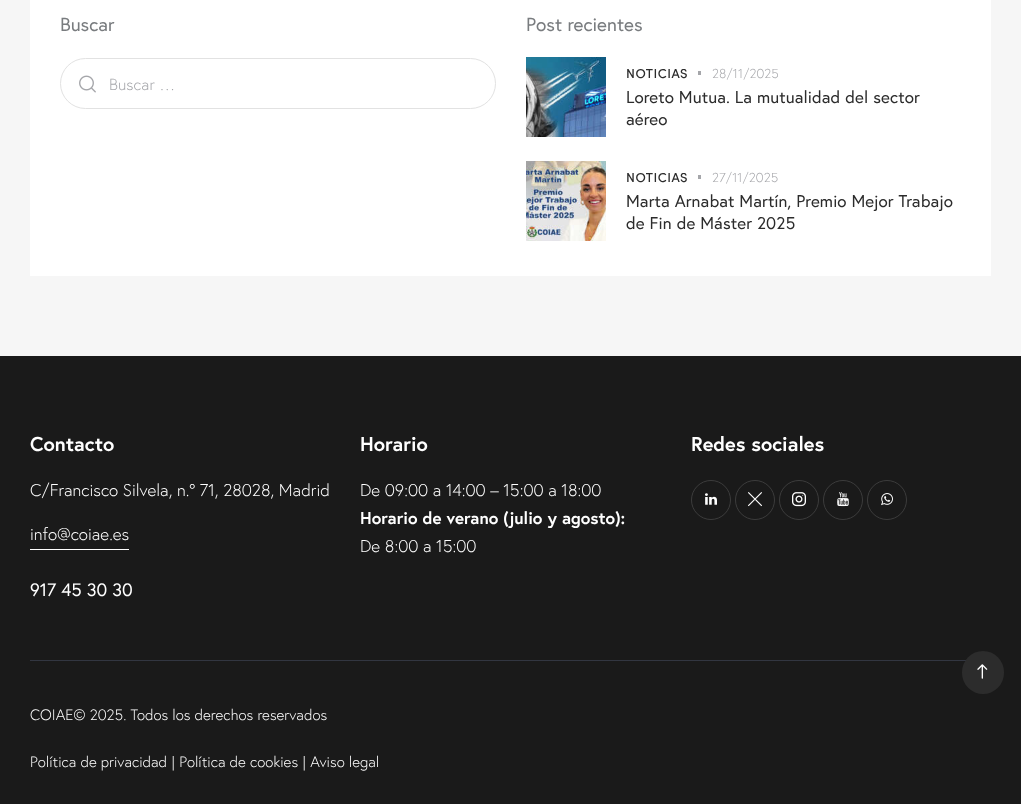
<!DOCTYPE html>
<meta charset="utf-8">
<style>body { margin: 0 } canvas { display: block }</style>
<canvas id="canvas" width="1021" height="804"></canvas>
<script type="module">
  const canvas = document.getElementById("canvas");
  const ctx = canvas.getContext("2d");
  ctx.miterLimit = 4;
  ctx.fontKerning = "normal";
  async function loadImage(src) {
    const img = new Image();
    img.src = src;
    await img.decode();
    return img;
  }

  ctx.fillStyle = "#f6f6f6";
  ctx.fillRect(0, 0, 1021, 804);
  ctx.fillStyle = "#ffffff";
  ctx.fillRect(30, 0, 961, 276);
  ctx.font = "19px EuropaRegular";
  ctx.fillStyle = "#797c7f";
  ctx.fillText("Buscar", 60, 31);
  ctx.beginPath();
  ctx.roundRect(60.5, 58.5, 435, 50, 25);
  ctx.strokeStyle = "#e2e2e2";
  ctx.stroke();
  ctx.drawImage(await loadImage("img1.png"), 79, 75, 17, 18);
  ctx.letterSpacing = "0.1px";
  ctx.font = "300 16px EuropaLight";
  ctx.fillStyle = "#a5a6aa";
  ctx.fillText("Buscar …", 109, 90);
  ctx.letterSpacing = "0px";
  ctx.font = "19px EuropaRegular";
  ctx.fillStyle = "#797c7f";
  ctx.fillText("Post recientes", 526, 31);
  ctx.drawImage(await loadImage("img2.png"), 526, 57, 80, 80);
  ctx.letterSpacing = "0.5px";
  ctx.font = "500 13px Sofia";
  ctx.fillStyle = "#2c2c2c";
  ctx.fillText("NOTICIAS", 626, 78);
  ctx.fillStyle = "#a5a6aa";
  ctx.fillRect(698, 71, 3, 4);
  ctx.letterSpacing = "0.1px";
  ctx.font = "300 13px EuropaLight";
  ctx.fillText("28/11/2025", 712, 78);
  ctx.font = "17px EuropaRegular";
  ctx.fillStyle = "#2c2c2c";
  ctx.fillText("Loreto Mutua. La mutualidad del sector", 626, 103);
  ctx.fillText("aéreo", 626, 125);
  ctx.drawImage(await loadImage("img3.png"), 526, 161, 80, 80);
  ctx.letterSpacing = "0.5px";
  ctx.font = "500 13px Sofia";
  ctx.fillText("NOTICIAS", 626, 182);
  ctx.fillStyle = "#a5a6aa";
  ctx.fillRect(698, 175, 3, 4);
  ctx.letterSpacing = "0.1px";
  ctx.font = "300 13px EuropaLight";
  ctx.fillText("27/11/2025", 712, 182);
  ctx.font = "17px EuropaRegular";
  ctx.fillStyle = "#2c2c2c";
  ctx.fillText("Marta Arnabat Martín, Premio Mejor Trabajo", 626, 207);
  ctx.fillText("de Fin de Máster 2025", 626, 229);
  ctx.fillStyle = "#1a1a1a";
  ctx.fillRect(0, 356, 1021, 448);
  ctx.letterSpacing = "0px";
  ctx.font = "bold 20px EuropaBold";
  ctx.fillStyle = "#ffffff";
  ctx.fillText("Contacto", 30, 451);
  ctx.font = "300 17px EuropaLight";
  ctx.fillText("C/Francisco Silvela, n.º 71, 28028, Madrid", 30, 496);
  ctx.fillText("info@coiae.es", 30, 540);
  ctx.fillRect(30, 549, 99, 1);
  ctx.font = "18px EuropaRegular";
  ctx.fillText("917 45 30 30", 30, 596);
  ctx.font = "bold 20px EuropaBold";
  ctx.fillText("Horario", 360, 451);
  ctx.font = "300 17px EuropaLight";
  ctx.fillText("De 09:00 a 14:00 – 15:00 a 18:00", 360, 496);
  ctx.font = "bold 17px EuropaBold";
  ctx.fillText("Horario de verano (julio y agosto):", 360, 524);
  ctx.font = "300 17px EuropaLight";
  ctx.fillText("De 8:00 a 15:00", 360, 552);
  ctx.font = "bold 20px EuropaBold";
  ctx.fillText("Redes sociales", 691, 451);
  ctx.beginPath();
  ctx.arc(711, 500, 19.5, 0, Math.PI * 2);
  ctx.strokeStyle = "#3c3c3c";
  ctx.stroke();
  ctx.drawImage(await loadImage("img4.png"), 705, 493, 12, 12);
  ctx.beginPath();
  ctx.arc(755, 500, 19.5, 0, Math.PI * 2);
  ctx.stroke();
  ctx.drawImage(await loadImage("img5.png"), 748, 492, 14, 15);
  ctx.beginPath();
  ctx.arc(799, 500, 19.5, 0, Math.PI * 2);
  ctx.stroke();
  ctx.drawImage(await loadImage("img6.png"), 792, 492, 14, 15);
  ctx.beginPath();
  ctx.arc(843, 500, 19.5, 0, Math.PI * 2);
  ctx.stroke();
  ctx.drawImage(await loadImage("img7.png"), 837, 492, 12, 15);
  ctx.beginPath();
  ctx.arc(887, 500, 19.5, 0, Math.PI * 2);
  ctx.stroke();
  ctx.drawImage(await loadImage("img8.png"), 881, 493, 12, 13);
  ctx.fillStyle = "#323641";
  ctx.fillRect(30, 660, 936, 1);
  ctx.font = "300 15px EuropaLight";
  ctx.fillStyle = "#ffffff";
  ctx.fillText("COIAE© 2025. Todos los derechos reservados", 30, 720);
  ctx.fillText("Política de privacidad | Política de cookies | Aviso legal", 30, 767);
  ctx.fillStyle = "#2c2c2c";
  ctx.beginPath();
  ctx.roundRect(962, 651, 42, 43, 21);
  ctx.fill();
  ctx.drawImage(await loadImage("img9.png"), 977, 664, 11, 15);
</script>
